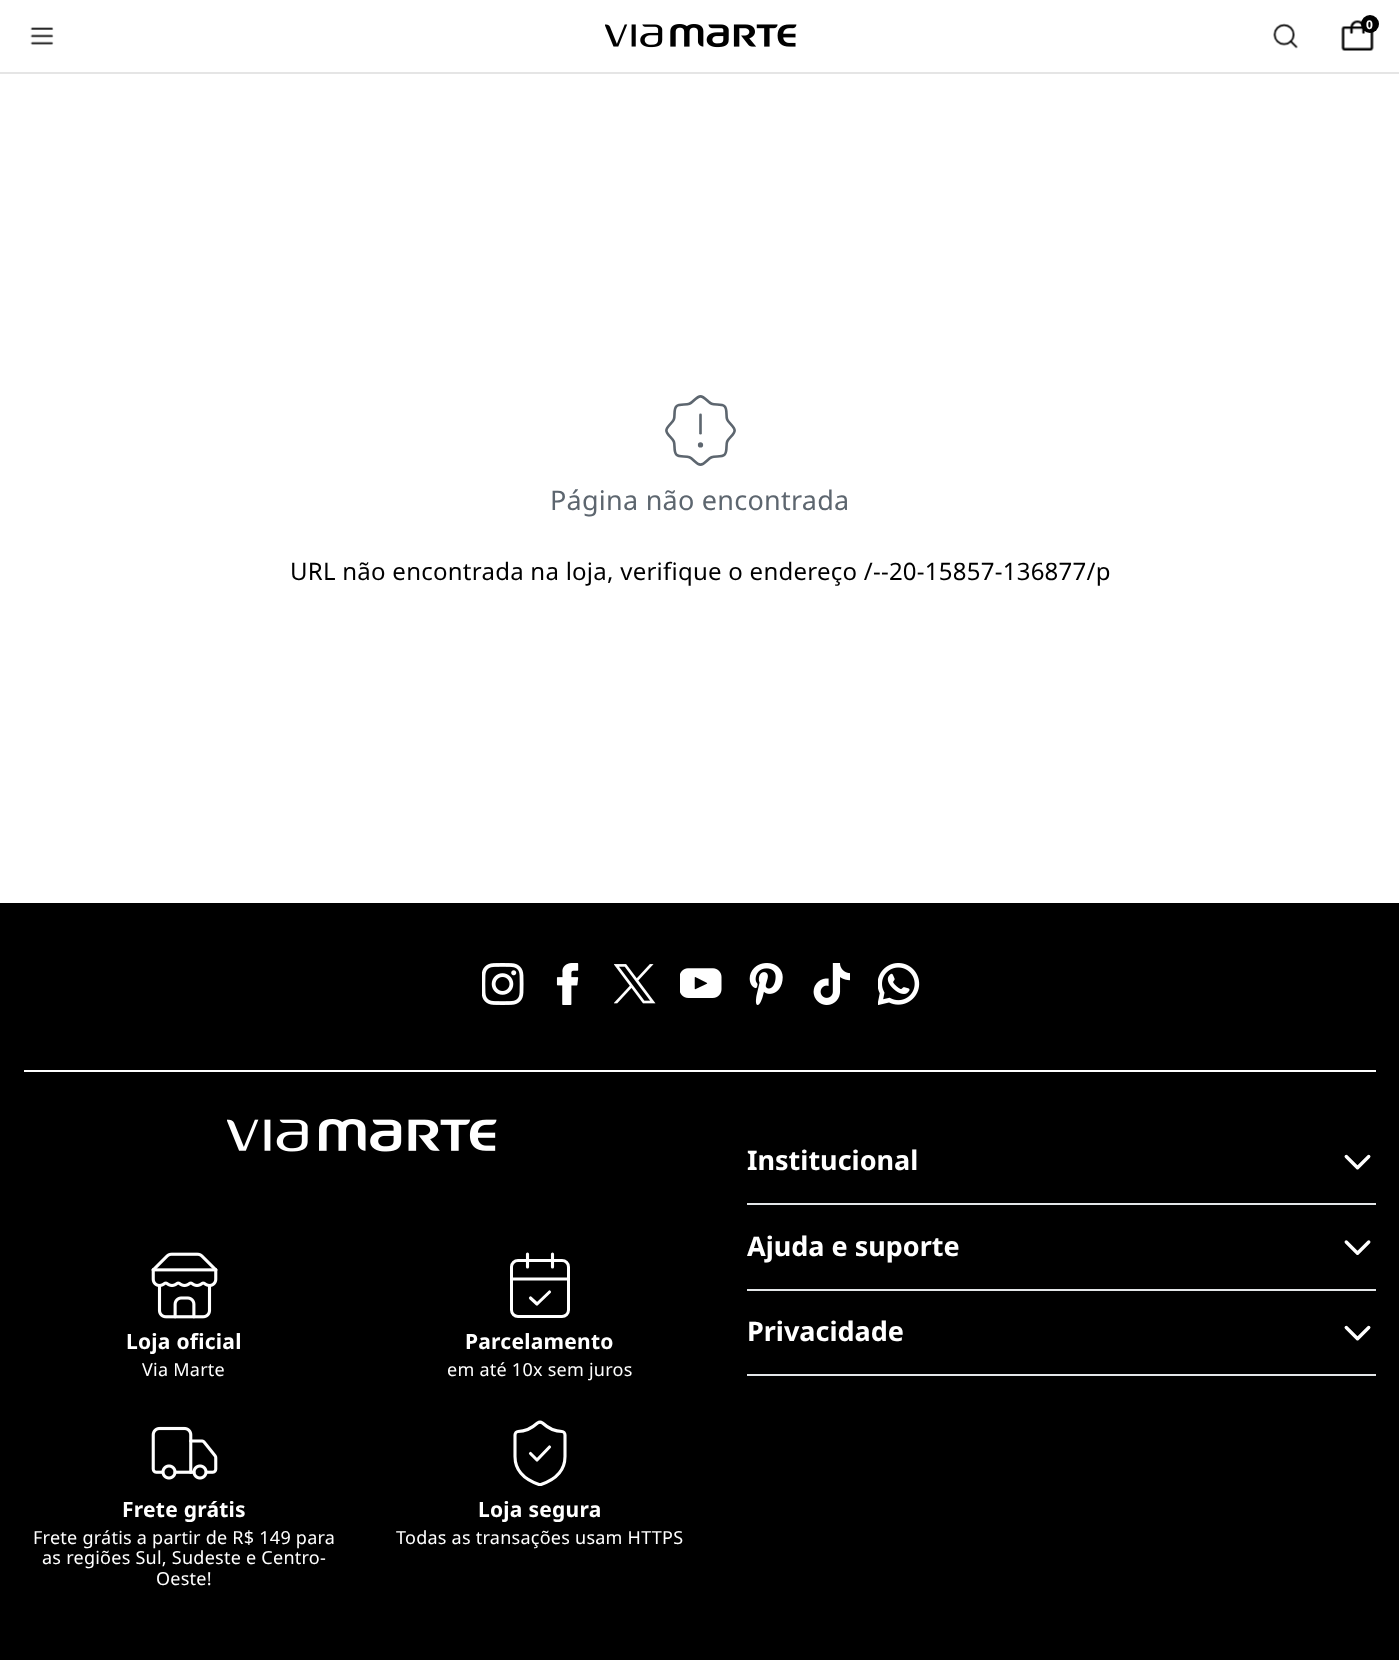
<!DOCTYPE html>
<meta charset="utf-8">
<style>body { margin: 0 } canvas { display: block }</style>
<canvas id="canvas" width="1399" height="1660"></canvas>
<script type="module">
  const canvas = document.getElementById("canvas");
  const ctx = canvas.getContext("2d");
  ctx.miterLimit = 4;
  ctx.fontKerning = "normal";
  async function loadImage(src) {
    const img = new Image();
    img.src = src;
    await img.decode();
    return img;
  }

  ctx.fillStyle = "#ffffff";
  ctx.fillRect(0, 0, 1399, 1660);
  ctx.fillStyle = "#e5e5e5";
  ctx.fillRect(0, 72, 1399, 2);
  ctx.drawImage(await loadImage("img1.png"), 30, 27, 24, 18);
  ctx.drawImage(await loadImage("img2.png"), 605, 24, 192, 24);
  ctx.drawImage(await loadImage("img3.png"), 1273, 23, 25, 26);
  ctx.drawImage(await loadImage("img4.png"), 1341, 20, 33, 31);
  ctx.fillStyle = "#000000";
  ctx.beginPath();
  ctx.arc(1370, 24, 9, 0, Math.PI * 2);
  ctx.fill();
  ctx.font = "bold 12px Noto Sans";
  ctx.fillStyle = "#ffffff";
  ctx.fillText("0", 1366, 29);
  ctx.drawImage(await loadImage("img5.png"), 665, 395, 71, 71);
  ctx.letterSpacing = "0.25px";
  ctx.font = "27px Noto Sans";
  ctx.fillStyle = "#5d666f";
  ctx.fillText("Página não encontrada", 550, 510);
  ctx.font = "24px Noto Sans";
  ctx.fillStyle = "#000000";
  ctx.fillText("URL não encontrada na loja, verifique o endereço /--20-15857-136877/p", 290, 580);
  ctx.fillRect(0, 903, 1399, 757);
  ctx.drawImage(await loadImage("img6.png"), 482, 963, 42, 42);
  ctx.drawImage(await loadImage("img7.png"), 556, 963, 23, 42);
  ctx.drawImage(await loadImage("img8.png"), 614, 964, 42, 40);
  ctx.drawImage(await loadImage("img9.png"), 680, 968, 42, 30);
  ctx.drawImage(await loadImage("img10.png"), 749, 963, 34, 42);
  ctx.drawImage(await loadImage("img11.png"), 813, 963, 37, 42);
  ctx.drawImage(await loadImage("img12.png"), 878, 963, 42, 42);
  ctx.fillStyle = "#ffffff";
  ctx.fillRect(24, 1070, 1352, 2);
  ctx.fillStyle = "#e3e6e8";
  ctx.fillRect(747, 1203, 629, 2);
  ctx.letterSpacing = "0px";
  ctx.font = "bold 27px Noto Sans";
  ctx.fillStyle = "#ffffff";
  ctx.fillText("Institucional", 747, 1170);
  ctx.drawImage(await loadImage("img13.png"), 1344, 1154, 27, 16);
  ctx.fillStyle = "#e3e6e8";
  ctx.fillRect(747, 1289, 629, 2);
  ctx.fillStyle = "#ffffff";
  ctx.fillText("Ajuda e suporte", 747, 1256);
  ctx.drawImage(await loadImage("img14.png"), 1344, 1240, 27, 15);
  ctx.fillStyle = "#e3e6e8";
  ctx.fillRect(747, 1374, 629, 2);
  ctx.fillStyle = "#ffffff";
  ctx.fillText("Privacidade", 747, 1341);
  ctx.drawImage(await loadImage("img13.png"), 1344, 1325, 27, 16);
  ctx.drawImage(await loadImage("img15.png"), 227, 1119, 270, 33);
  ctx.drawImage(await loadImage("img16.png"), 151, 1252, 67, 67);
  ctx.letterSpacing = "0.25px";
  ctx.font = "bold 21px Noto Sans";
  ctx.fillText("Loja oficial", 126, 1349);
  ctx.font = "18px Noto Sans";
  ctx.fillText("Via Marte", 142, 1376);
  ctx.beginPath();
  ctx.moveTo(527.5, 1254);
  ctx.lineTo(527.5, 1267);
  ctx.moveTo(552.5, 1254);
  ctx.lineTo(552.5, 1267);
  ctx.strokeStyle = "#ffffff";
  ctx.lineWidth = 3.1;
  ctx.lineCap = "round";
  ctx.lineJoin = "round";
  ctx.stroke();
  ctx.beginPath();
  ctx.roundRect(511.5, 1260.5, 57, 56, 6.5);
  ctx.lineWidth = 3;
  ctx.lineJoin = "miter";
  ctx.stroke();
  ctx.beginPath();
  ctx.moveTo(512, 1279);
  ctx.lineTo(568, 1279);
  ctx.moveTo(530.5, 1298);
  ctx.lineTo(537, 1304);
  ctx.lineTo(549.5, 1292);
  ctx.lineWidth = 3.1;
  ctx.lineJoin = "round";
  ctx.stroke();
  ctx.font = "bold 21px Noto Sans";
  ctx.fillText("Parcelamento", 465, 1349);
  ctx.font = "18px Noto Sans";
  ctx.fillText("em até 10x sem juros", 447, 1376);
  ctx.drawImage(await loadImage("img17.png"), 151, 1426, 67, 54);
  ctx.font = "bold 21px Noto Sans";
  ctx.fillText("Frete grátis", 122, 1517);
  ctx.font = "18px Noto Sans";
  ctx.fillText("Frete grátis a partir de R$ 149 para", 33, 1544);
  ctx.fillText("as regiões Sul, Sudeste e Centro-", 42, 1564);
  ctx.fillText("Oeste!", 156, 1585);
  ctx.beginPath();
  ctx.moveTo(565, 1456.5);
  ctx.bezierCurveTo(565, 1472, 554, 1480, 541, 1484.5);
  ctx.lineTo(539, 1484.5);
  ctx.bezierCurveTo(526, 1480, 515, 1472, 515, 1456.5);
  ctx.lineTo(515, 1435);
  ctx.bezierCurveTo(515, 1433, 516.5, 1431.5, 518, 1431.5);
  ctx.bezierCurveTo(524.5, 1431.5, 532, 1428, 537.5, 1423);
  ctx.bezierCurveTo(539, 1422, 541, 1422, 542.5, 1423);
  ctx.bezierCurveTo(548, 1428, 555.5, 1431.5, 562, 1431.5);
  ctx.bezierCurveTo(563.5, 1431.5, 565, 1433, 565, 1435);
  ctx.closePath();
  ctx.stroke();
  ctx.beginPath();
  ctx.moveTo(530.5, 1453.5);
  ctx.lineTo(537, 1460);
  ctx.lineTo(549.5, 1447);
  ctx.stroke();
  ctx.font = "bold 21px Noto Sans";
  ctx.fillText("Loja segura", 478, 1517);
  ctx.font = "18px Noto Sans";
  ctx.fillText("Todas as transações usam HTTPS", 396, 1544);
</script>
